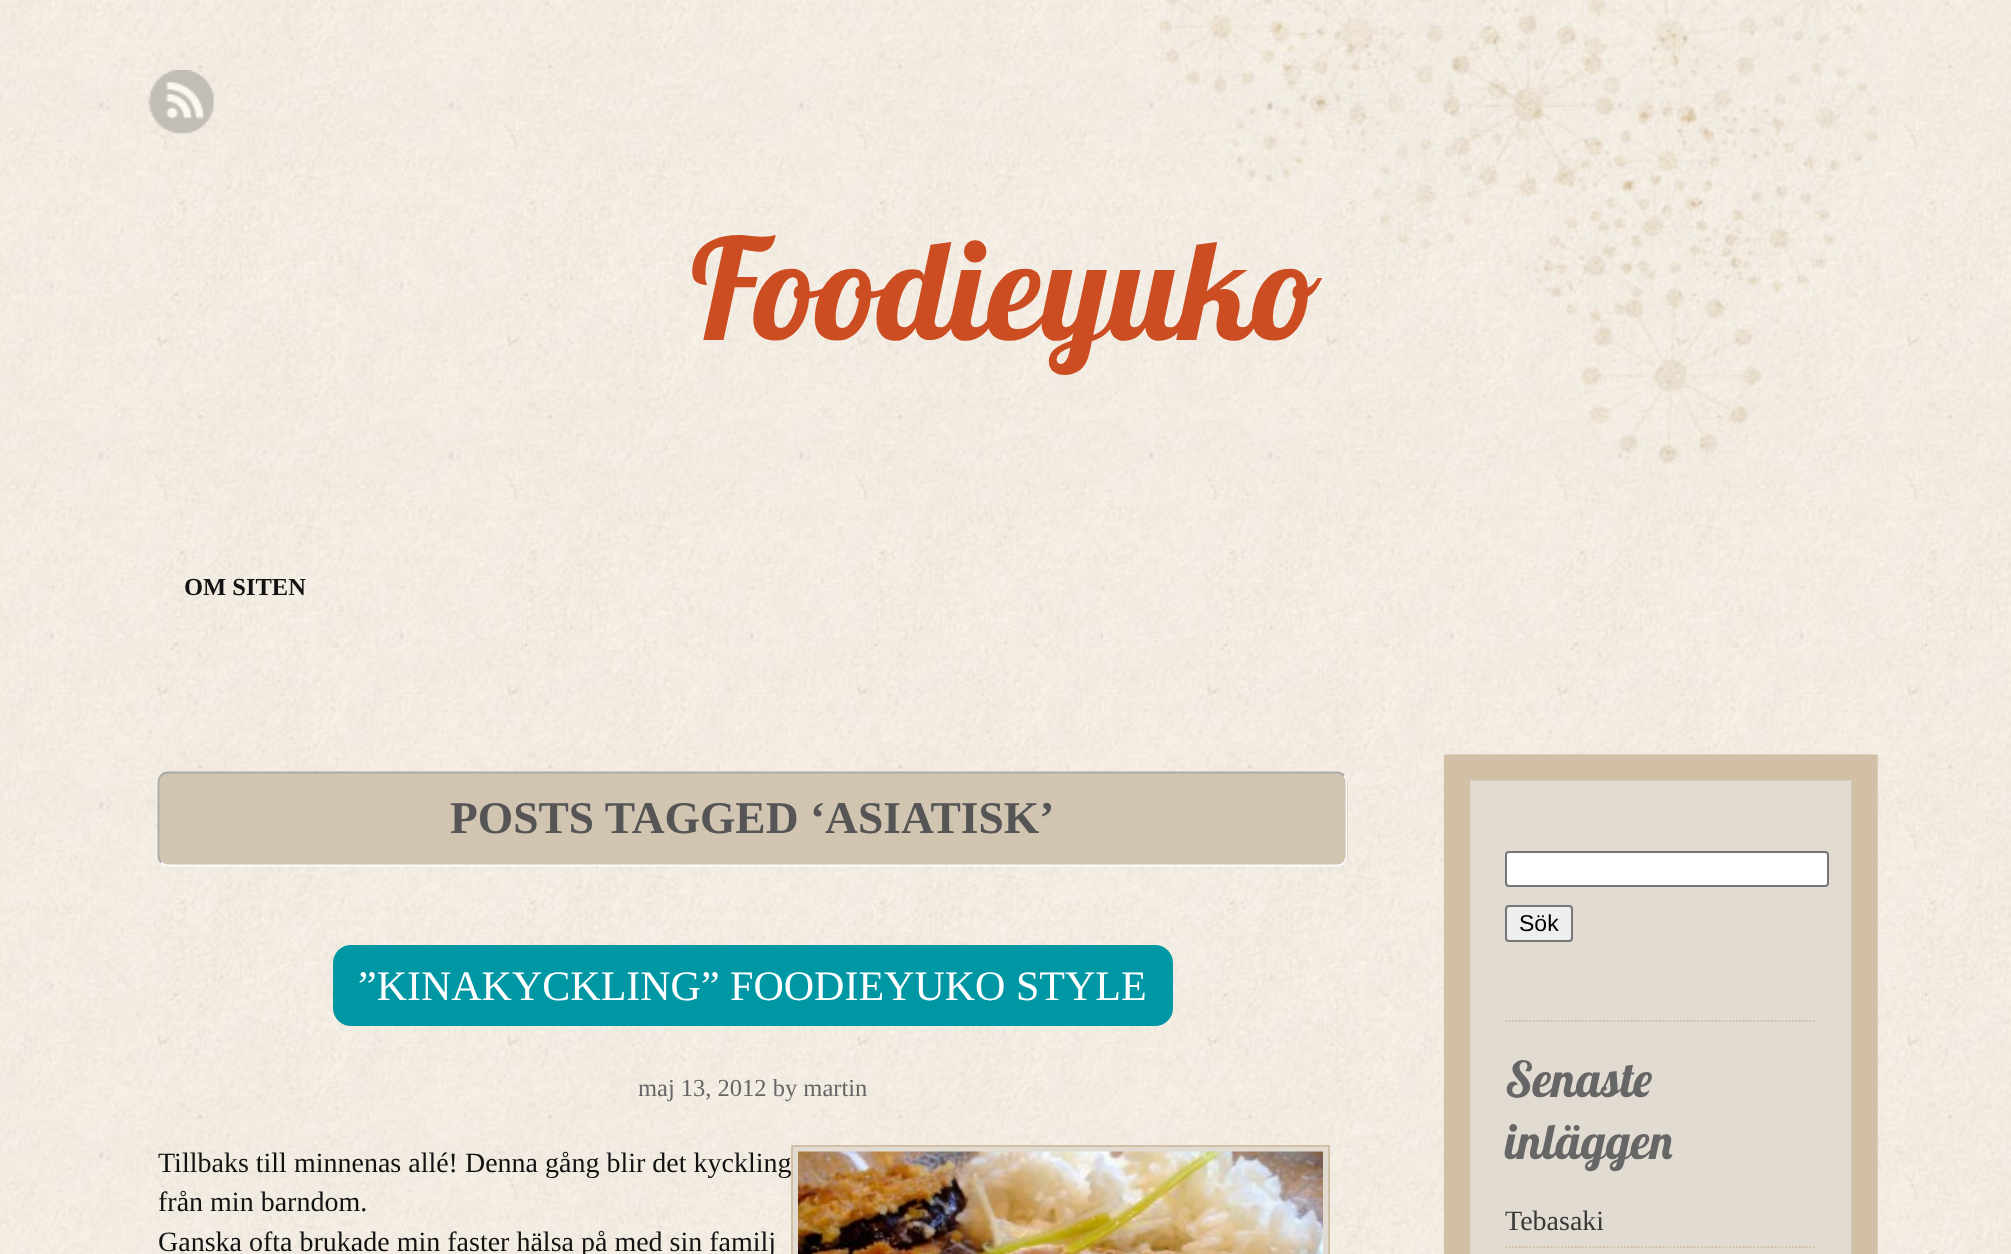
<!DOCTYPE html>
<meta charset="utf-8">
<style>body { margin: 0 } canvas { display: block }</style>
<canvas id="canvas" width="2011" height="1254"></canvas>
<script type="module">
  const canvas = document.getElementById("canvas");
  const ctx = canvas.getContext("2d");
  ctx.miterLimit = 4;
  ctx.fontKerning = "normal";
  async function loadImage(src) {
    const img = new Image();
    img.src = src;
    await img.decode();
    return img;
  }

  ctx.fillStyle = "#ffffff";
  ctx.fillRect(0, 0, 2011, 1254);
  ctx.drawImage(await loadImage("img1.png"), 0, 0, 2011, 1254);
  ctx.drawImage(await loadImage("img2.png"), 1155, 0, 726, 473);
  ctx.drawImage(await loadImage("img3.png"), 148, 70, 66, 65);
  ctx.font = "140px Lobster";
  ctx.fillStyle = "#cc4d22";
  ctx.fillText("Foodieyuko", 691, 340);
  ctx.font = "bold 24.5px Liberation Serif";
  ctx.fillStyle = "#121212";
  ctx.fillText("OM SITEN", 184, 595);
  ctx.fillStyle = "#d1c4b1";
  ctx.beginPath();
  ctx.roundRect(158, 772, 1190, 94, 11);
  ctx.fill();
  ctx.beginPath();
  ctx.moveTo(1344, 775.5);
  ctx.bezierCurveTo(1345.5, 777, 1346.5, 779.5, 1346.5, 782);
  ctx.lineTo(1346.5, 856);
  ctx.bezierCurveTo(1346.5, 858.5, 1345.5, 861, 1344, 862.5);
  ctx.bezierCurveTo(1342, 864.5, 1339.5, 865.5, 1337, 865.5);
  ctx.lineTo(168, 865.5);
  ctx.bezierCurveTo(165.5, 865.5, 163, 864.5, 161, 862.5);
  ctx.strokeStyle = "#fbfbfb";
  ctx.lineWidth = 1.8;
  ctx.stroke();
  ctx.beginPath();
  ctx.moveTo(161, 862.5);
  ctx.bezierCurveTo(159.5, 861, 158.5, 858.5, 158.5, 856);
  ctx.lineTo(158.5, 782);
  ctx.bezierCurveTo(158.5, 779.5, 159.5, 777, 161, 775.5);
  ctx.bezierCurveTo(163, 773.5, 165.5, 772.5, 168, 772.5);
  ctx.lineTo(1337, 772.5);
  ctx.bezierCurveTo(1339.5, 772.5, 1342, 773.5, 1344, 775.5);
  ctx.strokeStyle = "#aaaaaa";
  ctx.stroke();
  ctx.font = "bold 45.5px Liberation Serif";
  ctx.fillStyle = "#555555";
  ctx.fillText("POSTS TAGGED ‘ASIATISK’", 450, 833);
  ctx.fillStyle = "#0097a5";
  ctx.beginPath();
  ctx.roundRect(333, 945, 840, 81, 18);
  ctx.fill();
  ctx.font = "42px Liberation Serif";
  ctx.fillStyle = "#ffffff";
  ctx.fillText("”KINAKYCKLING” FOODIEYUKO STYLE", 358, 1000);
  ctx.drawImage(await loadImage("img4.png"), 620, 1074, 266, 27);
  ctx.font = "24.5px Liberation Serif";
  ctx.fillStyle = "#666666";
  ctx.fillText("maj 13, 2012 by martin", 638, 1096);
  ctx.font = "28px Liberation Serif";
  ctx.fillStyle = "#121212";
  ctx.fillText("Tillbaks till minnenas allé! Denna gång blir det kyckling", 158, 1172);
  ctx.fillStyle = "#e2dbd1";
  ctx.beginPath();
  ctx.rect(792, 1146, 537, 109);
  ctx.fill();
  ctx.strokeStyle = "#d1bfa6";
  ctx.lineWidth = 2;
  ctx.stroke();
  ctx.drawImage(await loadImage("img5.png"), 798, 1151, 525, 103);
  ctx.fillStyle = "#121212";
  ctx.fillText("från min barndom.", 158, 1211);
  ctx.fillText("Ganska ofta brukade min faster hälsa på med sin familj", 158, 1251);
  ctx.fillStyle = "#e2dbd1";
  ctx.beginPath();
  ctx.roundRect(1444, 754, 434, 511, 11);
  ctx.fill();
  ctx.beginPath();
  ctx.moveTo(1457, 767.5);
  ctx.lineTo(1864.5, 767.5);
  ctx.lineTo(1864.5, 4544);
  ctx.lineTo(1457, 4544);
  ctx.closePath();
  ctx.lineWidth = 26.2;
  ctx.stroke();
  ctx.beginPath();
  ctx.moveTo(1505, 1021);
  ctx.lineTo(1816.5, 1021);
  ctx.lineWidth = 1.8;
  ctx.setLineDash([1.75, 1.75]);
  ctx.stroke();
  ctx.fillStyle = "#ffffff";
  ctx.beginPath();
  ctx.roundRect(1506, 852, 322, 34, 3);
  ctx.fill();
  ctx.strokeStyle = "#767676";
  ctx.lineWidth = 2;
  ctx.setLineDash([]);
  ctx.stroke();
  ctx.fillStyle = "#efefef";
  ctx.beginPath();
  ctx.roundRect(1506, 906, 66, 35, 3);
  ctx.fill();
  ctx.stroke();
  ctx.font = "23px Liberation Sans";
  ctx.fillStyle = "#000000";
  ctx.fillText("Sök", 1519, 931);
  ctx.font = "49px Lobster";
  ctx.fillStyle = "#666666";
  ctx.fillText("Senaste", 1505, 1097);
  ctx.fillText("inläggen", 1505, 1159);
  ctx.beginPath();
  ctx.moveTo(1505, 1247);
  ctx.lineTo(1816.5, 1247);
  ctx.strokeStyle = "#d1bfa6";
  ctx.lineWidth = 1.8;
  ctx.setLineDash([1.75, 1.75]);
  ctx.stroke();
  ctx.font = "28px Liberation Serif";
  ctx.fillStyle = "#393939";
  ctx.fillText("Tebasaki", 1505, 1230);
</script>
